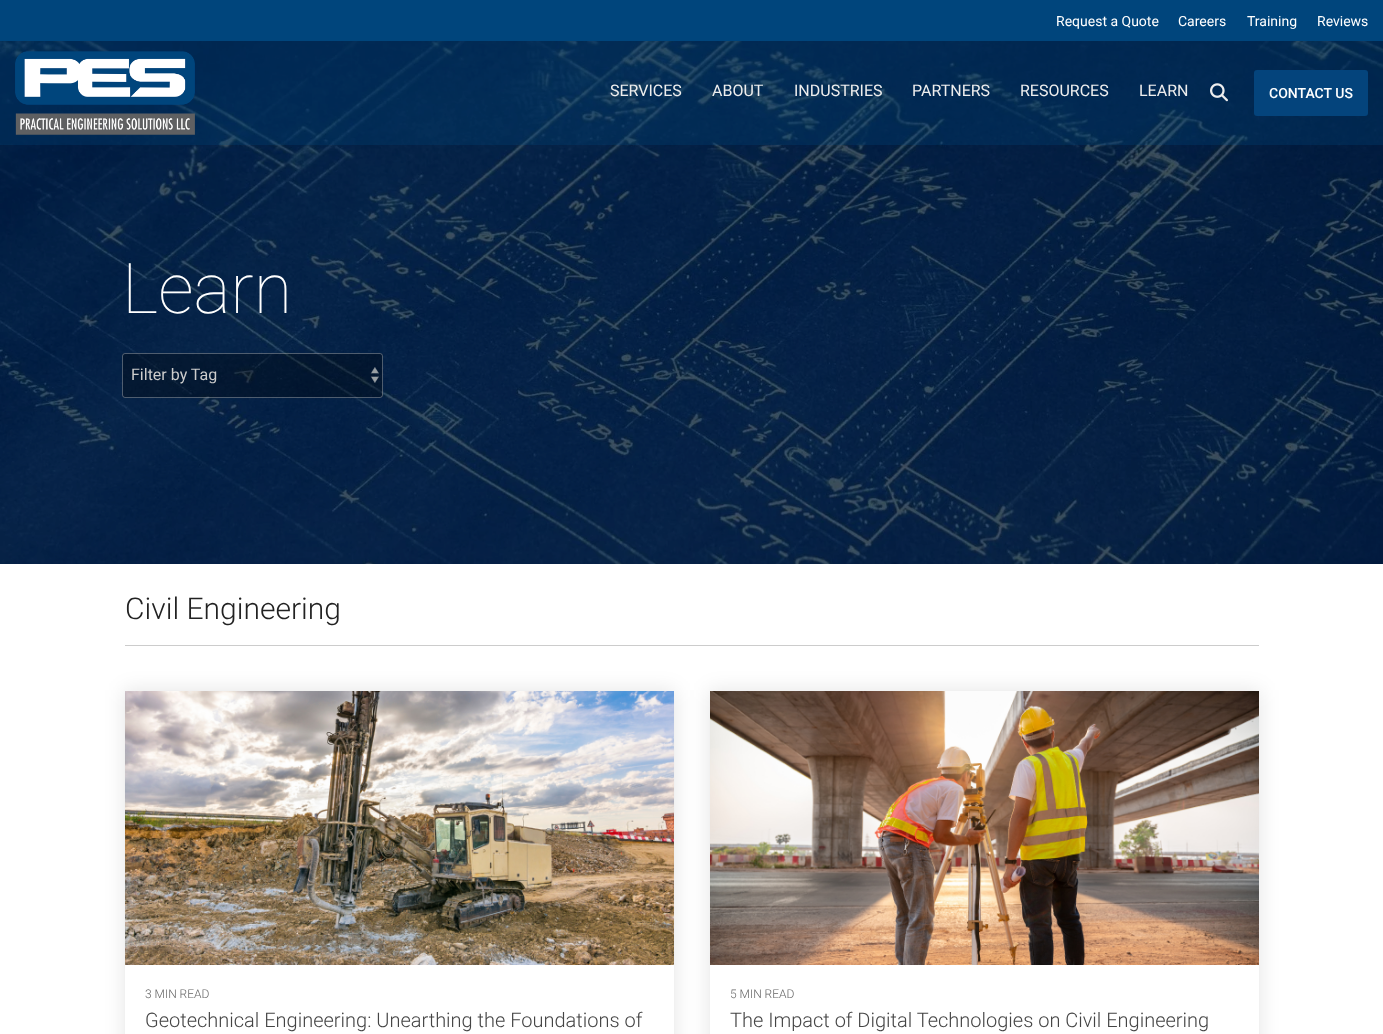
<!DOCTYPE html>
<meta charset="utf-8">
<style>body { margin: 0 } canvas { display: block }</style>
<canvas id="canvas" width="1383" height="1034"></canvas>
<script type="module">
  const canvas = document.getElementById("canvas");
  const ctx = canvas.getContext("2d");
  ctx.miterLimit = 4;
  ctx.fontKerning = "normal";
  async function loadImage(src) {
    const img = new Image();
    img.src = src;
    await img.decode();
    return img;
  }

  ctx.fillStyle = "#ffffff";
  ctx.fillRect(0, 0, 1383, 1034);
  ctx.fillStyle = "#00457c";
  ctx.fillRect(0, 0, 1383, 41);
  ctx.font = "14px Roboto";
  ctx.fillStyle = "#ffffff";
  ctx.fillText("Request a Quote", 1056, 26);
  ctx.fillText("Careers", 1178, 26);
  ctx.fillText("Training", 1247, 26);
  ctx.fillText("Reviews", 1317, 26);
  ctx.drawImage(await loadImage("img3.png"), 0, 41, 1383, 523);
  ctx.fillStyle = "rgba(0, 69, 124, 0.3)";
  ctx.fillRect(0, 41, 1383, 104);
  ctx.drawImage(await loadImage("img1.png"), 15, 51, 180, 84);
  ctx.font = "16px Roboto";
  ctx.fillStyle = "#eeeeee";
  ctx.fillText("SERVICES", 610, 96);
  ctx.fillText("ABOUT", 712, 96);
  ctx.fillText("INDUSTRIES", 794, 96);
  ctx.fillText("PARTNERS", 912, 96);
  ctx.fillText("RESOURCES", 1020, 96);
  ctx.fillText("LEARN", 1139, 96);
  ctx.drawImage(await loadImage("img2.png"), 1210, 83, 18, 19);
  ctx.fillStyle = "#04447c";
  ctx.beginPath();
  ctx.roundRect(1254, 70, 114, 46, 3);
  ctx.fill();
  ctx.font = "500 14px Roboto";
  ctx.fillStyle = "#ffffff";
  ctx.fillText("CONTACT US", 1269, 98);
  ctx.font = "100 70px Roboto";
  ctx.fillText("Learn", 122, 313);
  ctx.fillStyle = "rgba(0, 0, 0, 0.3)";
  ctx.beginPath();
  ctx.roundRect(122, 353, 261, 45, 3);
  ctx.fill();
  ctx.drawImage(await loadImage("img4.png"), 370, 367, 9, 16);
  ctx.beginPath();
  ctx.roundRect(122.5, 353.5, 260, 44, 2.5);
  ctx.strokeStyle = "rgba(255, 255, 255, 0.3)";
  ctx.stroke();
  ctx.font = "16px Roboto";
  ctx.fillStyle = "#cccccc";
  ctx.fillText("Filter by Tag", 131, 380);
  ctx.fillRect(125, 645, 1134, 1);
  ctx.font = "300 30px Roboto";
  ctx.fillStyle = "#222222";
  ctx.fillText("Civil Engineering", 125, 619);
  ctx.save();
  ctx.beginPath();
  ctx.moveTo(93, 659);
  ctx.lineTo(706, 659);
  ctx.lineTo(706, 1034);
  ctx.lineTo(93, 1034);
  ctx.closePath();
  ctx.moveTo(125, 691);
  ctx.lineTo(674, 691);
  ctx.lineTo(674, 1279);
  ctx.lineTo(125, 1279);
  ctx.closePath();
  ctx.clip("evenodd");
  ctx.fillStyle = "rgba(0, 0, 0, 0.1)";
  ctx.filter = "blur(10px)";
  ctx.beginPath();
  ctx.rect(124, 690, 551, 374);
  ctx.fill();
  ctx.filter = "none";
  ctx.restore();
  ctx.drawImage(await loadImage("img5.png"), 125, 691, 549, 274);
  ctx.font = "300 12px Roboto";
  ctx.fillStyle = "#666666";
  ctx.fillText("3 MIN READ", 145, 998);
  ctx.font = "300 20px Roboto";
  ctx.fillStyle = "#444444";
  ctx.fillText("Geotechnical Engineering: Unearthing the Foundations of", 145, 1027);
  ctx.save();
  ctx.beginPath();
  ctx.moveTo(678, 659);
  ctx.lineTo(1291, 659);
  ctx.lineTo(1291, 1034);
  ctx.lineTo(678, 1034);
  ctx.closePath();
  ctx.moveTo(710, 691);
  ctx.lineTo(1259, 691);
  ctx.lineTo(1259, 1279);
  ctx.lineTo(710, 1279);
  ctx.closePath();
  ctx.clip("evenodd");
  ctx.fillStyle = "rgba(0, 0, 0, 0.1)";
  ctx.filter = "blur(10px)";
  ctx.beginPath();
  ctx.rect(709, 690, 551, 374);
  ctx.fill();
  ctx.filter = "none";
  ctx.restore();
  ctx.drawImage(await loadImage("img6.png"), 710, 691, 549, 274);
  ctx.font = "300 12px Roboto";
  ctx.fillStyle = "#666666";
  ctx.fillText("5 MIN READ", 730, 998);
  ctx.font = "300 20px Roboto";
  ctx.fillStyle = "#444444";
  ctx.fillText("The Impact of Digital Technologies on Civil Engineering", 730, 1027);
</script>
